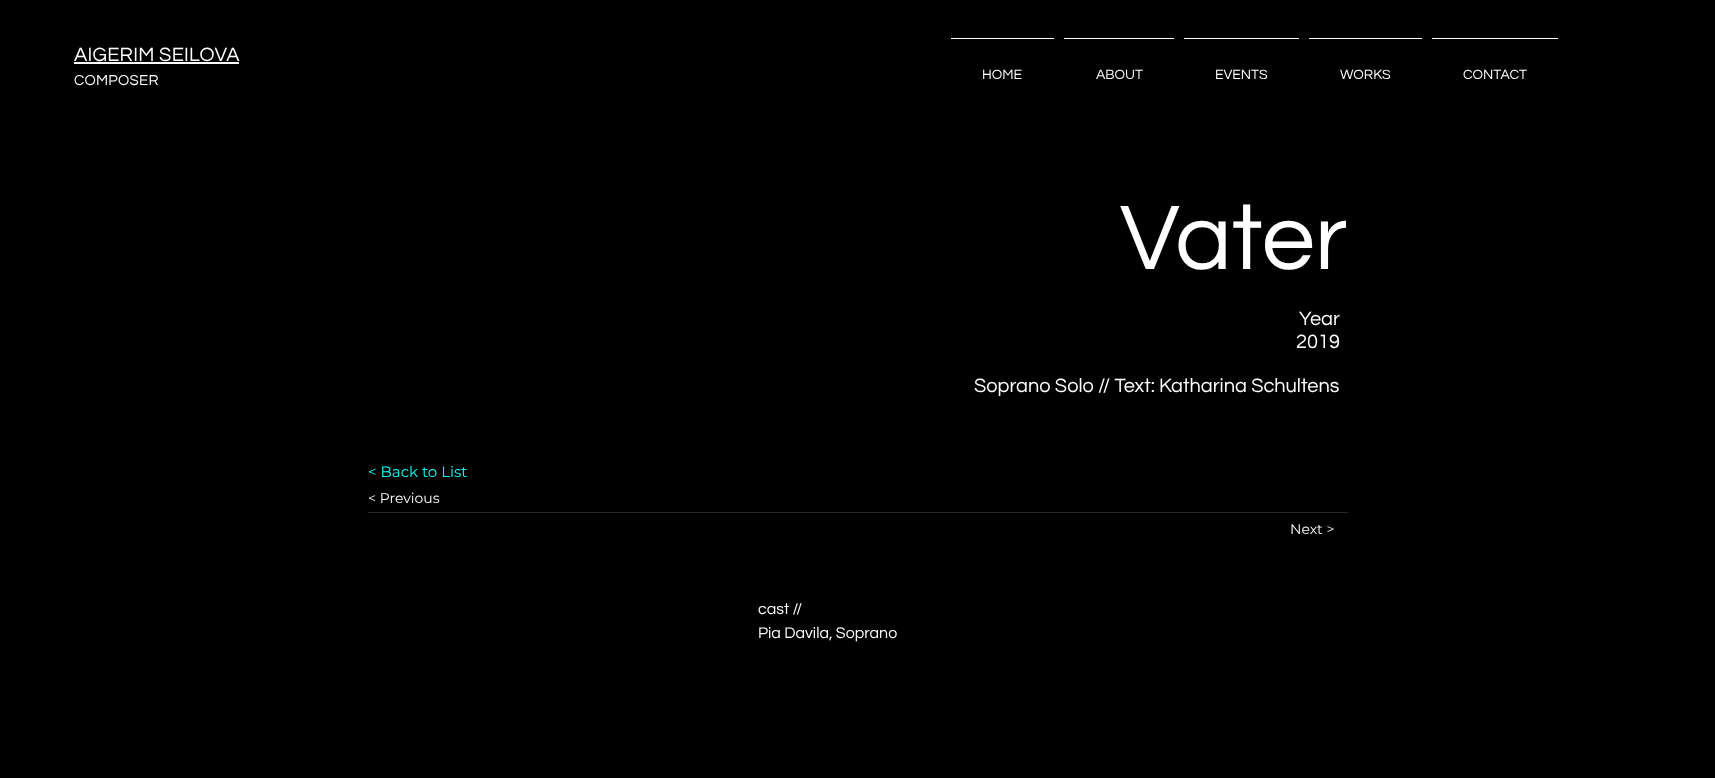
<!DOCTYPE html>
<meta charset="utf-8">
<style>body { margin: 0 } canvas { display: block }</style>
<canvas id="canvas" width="1715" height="778"></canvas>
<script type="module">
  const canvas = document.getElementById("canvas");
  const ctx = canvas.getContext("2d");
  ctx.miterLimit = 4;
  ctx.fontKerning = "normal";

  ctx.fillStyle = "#000000";
  ctx.fillRect(0, 0, 1715, 778);
  ctx.letterSpacing = "0.25px";
  ctx.font = "20px Questrial";
  ctx.fillStyle = "#ffffff";
  ctx.fillText("AIGERIM SEILOVA", 74, 61);
  ctx.fillRect(74, 62, 165, 2);
  ctx.font = "15px Questrial";
  ctx.fillText("COMPOSER", 74, 85);
  ctx.fillRect(951, 38, 103, 1);
  ctx.letterSpacing = "0px";
  ctx.font = "14px Questrial";
  ctx.fillText("HOME", 982, 79);
  ctx.fillRect(1064, 38, 110, 1);
  ctx.fillText("ABOUT", 1096, 79);
  ctx.fillRect(1184, 38, 115, 1);
  ctx.fillText("EVENTS", 1215, 79);
  ctx.fillRect(1309, 38, 113, 1);
  ctx.fillText("WORKS", 1340, 79);
  ctx.fillRect(1432, 38, 126, 1);
  ctx.fillText("CONTACT", 1463, 79);
  ctx.font = "95px Questrial";
  ctx.fillText("Vater", 1120, 269);
  ctx.font = "20px Questrial";
  ctx.fillText("Year", 1299, 325);
  ctx.fillText("2019", 1296, 348);
  ctx.fillText("Soprano Solo // Text: Katharina Schultens", 974, 392);
  ctx.font = "15px Montserrat";
  ctx.fillStyle = "#0afff9";
  ctx.fillText("< Back to List", 368, 477);
  ctx.font = "14px Montserrat";
  ctx.fillStyle = "#ffffff";
  ctx.fillText("< Previous", 368, 503);
  ctx.fillText("Next >", 1290, 534);
  ctx.fillStyle = "#000000";
  ctx.fillRect(1305, 534, 16, 1);
  ctx.font = "16px Questrial";
  ctx.fillStyle = "#ffffff";
  ctx.fillText("cast //", 758, 614);
  ctx.fillText("Pia Davila, Soprano", 758, 638);
  ctx.fillStyle = "#282626";
  ctx.fillRect(368, 512, 980, 1);
</script>
